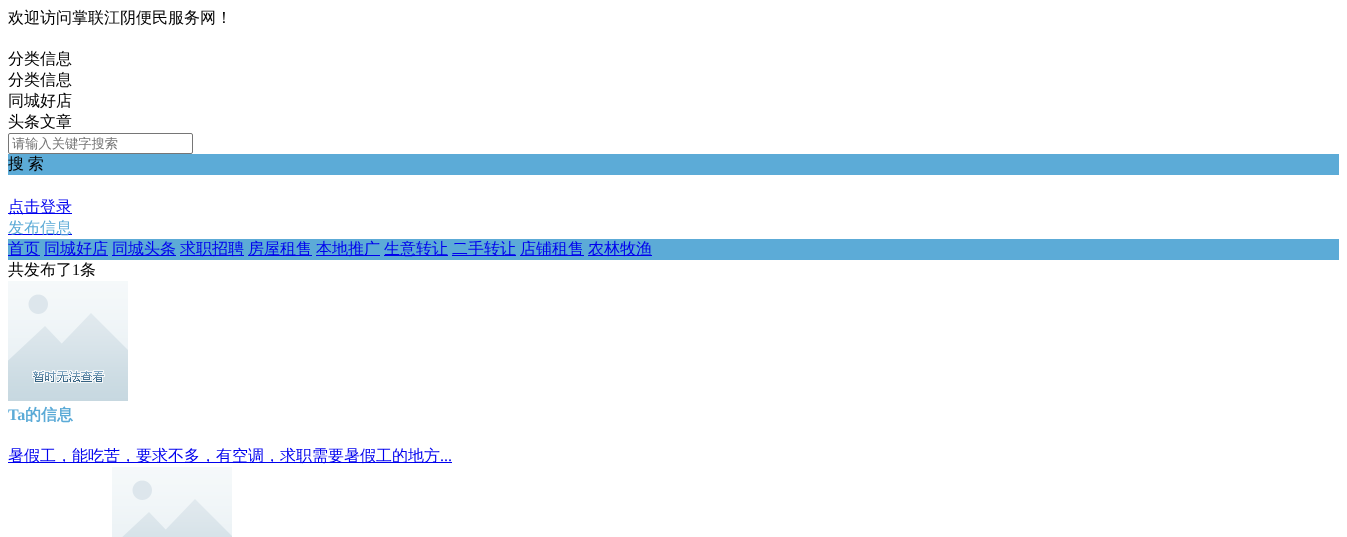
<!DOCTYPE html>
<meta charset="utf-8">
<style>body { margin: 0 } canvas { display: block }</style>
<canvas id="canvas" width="1347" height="537"></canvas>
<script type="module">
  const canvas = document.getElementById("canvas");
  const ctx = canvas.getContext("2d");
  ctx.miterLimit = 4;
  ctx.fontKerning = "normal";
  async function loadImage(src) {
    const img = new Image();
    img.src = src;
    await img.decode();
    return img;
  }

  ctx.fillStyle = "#ffffff";
  ctx.fillRect(0, 0, 1347, 537);
  ctx.font = "500 16px WenQuanYi Zen Hei";
  ctx.fillStyle = "#000000";
  ctx.fillText("欢迎访问掌联江阴便民服务网！", 8, 23);
  ctx.fillText("分类信息", 8, 64);
  ctx.fillText("分类信息", 8, 85);
  ctx.fillText("同城好店", 8, 106);
  ctx.fillText("头条文章", 8, 127);
  ctx.beginPath();
  ctx.roundRect(8.5, 133.5, 184, 20, 1.5);
  ctx.strokeStyle = "#767676";
  ctx.stroke();
  ctx.font = "500 13.25px WenQuanYi Zen Hei";
  ctx.fillStyle = "#757575";
  ctx.fillText("请输入关键字搜索", 12, 148);
  ctx.fillStyle = "#5cabd7";
  ctx.fillRect(8, 154, 1331, 21);
  ctx.wordSpacing = "-1px";
  ctx.font = "500 16px WenQuanYi Zen Hei";
  ctx.fillStyle = "#000000";
  ctx.fillText("搜 索", 8, 169);
  ctx.fillStyle = "#0000ee";
  ctx.fillRect(8, 213, 64, 1);
  ctx.wordSpacing = "0px";
  ctx.fillText("点击登录", 8, 212);
  ctx.fillRect(8, 234, 64, 1);
  ctx.fillStyle = "#5cabd7";
  ctx.fillText("发布信息", 8, 233);
  ctx.fillRect(8, 239, 1331, 21);
  ctx.fillStyle = "#0000ee";
  ctx.fillRect(8, 255, 32, 1);
  ctx.fillText("首页", 8, 254);
  ctx.fillRect(44, 255, 64, 1);
  ctx.fillText("同城好店", 44, 254);
  ctx.fillRect(112, 255, 64, 1);
  ctx.fillText("同城头条", 112, 254);
  ctx.fillRect(180, 255, 64, 1);
  ctx.fillText("求职招聘", 180, 254);
  ctx.fillRect(248, 255, 64, 1);
  ctx.fillText("房屋租售", 248, 254);
  ctx.fillRect(316, 255, 64, 1);
  ctx.fillText("本地推广", 316, 254);
  ctx.fillRect(384, 255, 64, 1);
  ctx.fillText("生意转让", 384, 254);
  ctx.fillRect(452, 255, 64, 1);
  ctx.fillText("二手转让", 452, 254);
  ctx.fillRect(520, 255, 64, 1);
  ctx.fillText("店铺租售", 520, 254);
  ctx.fillRect(588, 255, 64, 1);
  ctx.fillText("农林牧渔", 588, 254);
  ctx.fillStyle = "#000000";
  ctx.fillText("共发布了", 8, 275);
  ctx.font = "16px Liberation Serif";
  ctx.fillText("1", 72, 275);
  ctx.font = "500 16px WenQuanYi Zen Hei";
  ctx.fillText("条", 80, 275);
  ctx.drawImage(await loadImage("img1.png"), 8, 281, 120, 120);
  ctx.font = "bold 16px Liberation Serif";
  ctx.fillStyle = "#5cabd7";
  ctx.fillText("Ta", 8, 420);
  ctx.font = "bold 16px WenQuanYi Zen Hei";
  ctx.fillText("的信息", 25, 420);
  ctx.fillStyle = "#0000ee";
  ctx.fillRect(8, 462, 444, 1);
  ctx.font = "500 16px WenQuanYi Zen Hei";
  ctx.fillText("暑假工，能吃苦，要求不多，有空调，求职需要暑假工的地方", 8, 461);
  ctx.font = "16px Liberation Serif";
  ctx.fillText("...", 440, 461);
  ctx.drawImage(await loadImage("img2.png"), 112, 467, 120, 70);
</script>
